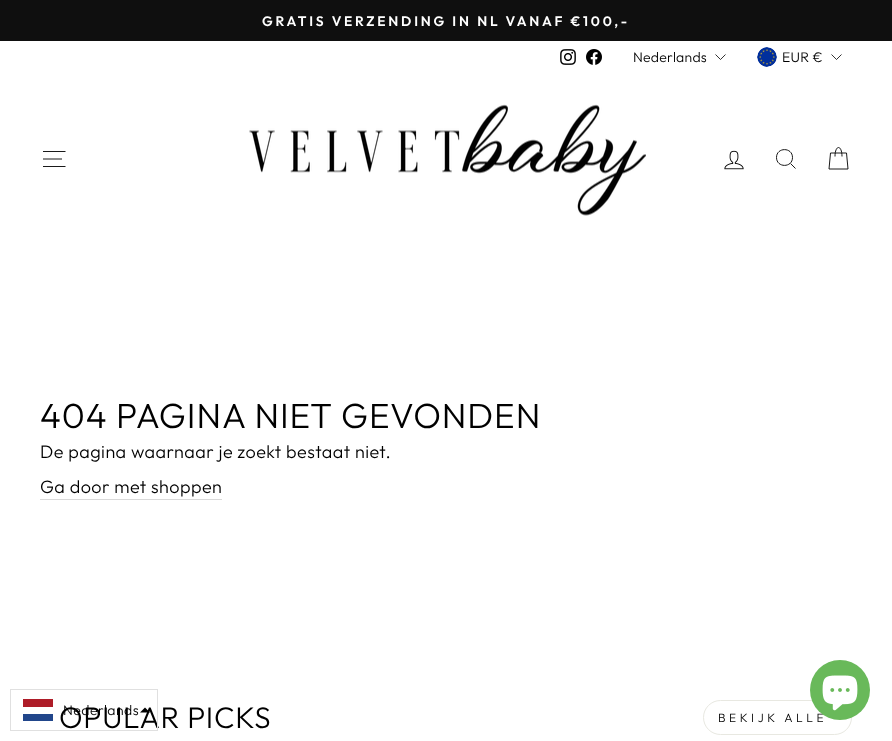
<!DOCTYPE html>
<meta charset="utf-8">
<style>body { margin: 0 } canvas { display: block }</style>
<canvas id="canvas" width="892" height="741"></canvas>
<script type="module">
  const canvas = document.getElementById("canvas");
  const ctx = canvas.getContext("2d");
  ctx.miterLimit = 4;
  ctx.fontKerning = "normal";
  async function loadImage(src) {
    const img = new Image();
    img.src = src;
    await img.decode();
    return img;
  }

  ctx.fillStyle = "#ffffff";
  ctx.fillRect(0, 0, 892, 741);
  ctx.fillStyle = "#0f0f0f";
  ctx.fillRect(0, 0, 892, 41);
  ctx.letterSpacing = "2.75px";
  ctx.font = "600 13.75px Outfit";
  ctx.fillStyle = "#ffffff";
  ctx.fillText("GRATIS VERZENDING IN NL VANAF €100,-", 262, 26);
  ctx.drawImage(await loadImage("img1.png"), 560, 49, 16, 16);
  ctx.drawImage(await loadImage("img2.png"), 586, 49, 16, 16);
  ctx.letterSpacing = "0.25px";
  ctx.font = "300 14px Outfit";
  ctx.fillStyle = "#000000";
  ctx.fillText("Nederlands", 633, 62);
  ctx.beginPath();
  ctx.moveTo(715.5, 54.5);
  ctx.lineTo(720.5, 59.5);
  ctx.lineTo(725.5, 54.5);
  ctx.strokeStyle = "#000000";
  ctx.lineWidth = 0.8;
  ctx.stroke();
  ctx.drawImage(await loadImage("img3.png"), 757, 47, 20, 20);
  ctx.fillText("EUR €", 782, 62);
  ctx.beginPath();
  ctx.moveTo(831.5, 54.5);
  ctx.lineTo(836.5, 59.5);
  ctx.lineTo(841.5, 54.5);
  ctx.stroke();
  ctx.beginPath();
  ctx.moveTo(43, 151.5);
  ctx.lineTo(65.5, 151.5);
  ctx.moveTo(43, 159);
  ctx.lineTo(62, 159);
  ctx.moveTo(43, 166.5);
  ctx.lineTo(65.5, 166.5);
  ctx.lineWidth = 0.9;
  ctx.stroke();
  ctx.drawImage(await loadImage("img4.png"), 249, 104, 397, 112);
  ctx.drawImage(await loadImage("img5.png"), 724, 150, 20, 20);
  ctx.beginPath();
  ctx.moveTo(792.5, 157.5);
  ctx.bezierCurveTo(792.5, 168, 776.5, 168, 776.5, 157.5);
  ctx.bezierCurveTo(776.5, 147, 792.5, 147, 792.5, 157.5);
  ctx.closePath();
  ctx.moveTo(795.5, 168.5);
  ctx.lineTo(790.5, 163.5);
  ctx.stroke();
  ctx.beginPath();
  ctx.moveTo(835, 156.5);
  ctx.bezierCurveTo(835, 144.5, 842, 144.5, 842, 156.5);
  ctx.moveTo(830.5, 153);
  ctx.lineTo(846.5, 153);
  ctx.lineTo(848, 169);
  ctx.lineTo(829, 169);
  ctx.closePath();
  ctx.stroke();
  ctx.letterSpacing = "0.9px";
  ctx.font = "300 35px Outfit";
  ctx.fillText("404 PAGINA NIET GEVONDEN", 40, 428);
  ctx.letterSpacing = "0.45px";
  ctx.font = "300 18px Outfit";
  ctx.fillText("De pagina waarnaar je zoekt bestaat niet.", 40, 458);
  ctx.fillStyle = "#d9d9d9";
  ctx.fillRect(40, 499, 182, 1);
  ctx.fillStyle = "#000000";
  ctx.fillText("Ga door met shoppen", 40, 493);
  ctx.letterSpacing = "0.75px";
  ctx.font = "300 29.75px Outfit";
  ctx.fillText("OPULAR PICKS", 59, 728);
  ctx.beginPath();
  ctx.roundRect(703.5, 700.5, 148, 34, 17);
  ctx.strokeStyle = "#e8e8e1";
  ctx.lineWidth = 1;
  ctx.stroke();
  ctx.letterSpacing = "3.6px";
  ctx.font = "300 12px Outfit";
  ctx.fillText("BEKIJK ALLE", 718, 722);
  ctx.fillStyle = "#69b95a";
  ctx.beginPath();
  ctx.arc(840, 690, 30, 0, Math.PI * 2);
  ctx.fill();
  ctx.drawImage(await loadImage("img6.png"), 822, 675, 36, 36);
  ctx.strokeStyle = "#e0e0e0";
  ctx.strokeRect(10.5, 689.5, 147, 41);
  ctx.fillStyle = "#21468b";
  ctx.fillRect(23, 714, 30, 7);
  ctx.fillStyle = "#ae1c28";
  ctx.fillRect(23, 699, 30, 8);
  ctx.letterSpacing = "0.45px";
  ctx.font = "300 14px Outfit";
  ctx.fillStyle = "#000000";
  ctx.fillText("Nederlands", 63, 715);
  ctx.beginPath();
  ctx.moveTo(140, 712.5);
  ctx.lineTo(145, 707.5);
  ctx.lineTo(150, 712.5);
  ctx.closePath();
  ctx.fill("evenodd");
</script>
